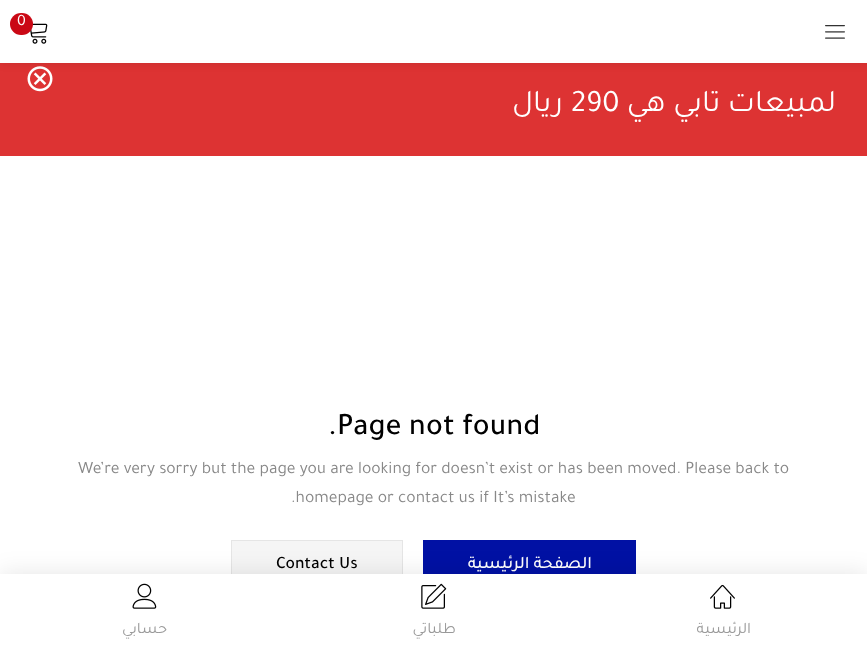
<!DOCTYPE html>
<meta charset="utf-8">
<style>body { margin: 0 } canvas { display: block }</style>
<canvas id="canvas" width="867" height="652"></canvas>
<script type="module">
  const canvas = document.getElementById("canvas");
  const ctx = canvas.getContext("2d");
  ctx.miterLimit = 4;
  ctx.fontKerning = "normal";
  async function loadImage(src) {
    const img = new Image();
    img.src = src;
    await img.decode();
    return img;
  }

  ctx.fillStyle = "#ffffff";
  ctx.fillRect(0, 0, 867, 652);
  ctx.fillStyle = "#dd3333";
  ctx.fillRect(0, 63, 867, 93);
  ctx.drawImage(await loadImage("img6.png"), 27, 66, 26, 26);
  ctx.fillStyle = "rgba(0, 0, 0, 0.1)";
  ctx.filter = "blur(5px)";
  ctx.beginPath();
  ctx.rect(0, 0, 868, 63);
  ctx.fill();
  ctx.filter = "none";
  ctx.fillStyle = "#ffffff";
  ctx.fillRect(0, 0, 867, 63);
  ctx.drawImage(await loadImage("img1.png"), 30, 23, 18, 21);
  ctx.fillStyle = "#ca0815";
  ctx.beginPath();
  ctx.roundRect(10, 13, 23, 22, 11);
  ctx.fill();
  ctx.font = "16px Tajawal";
  ctx.fillStyle = "#ffffff";
  ctx.fillText("0", 17, 25);
  ctx.drawImage(await loadImage("img2.png"), 825, 25, 20, 14);
  ctx.font = "500 31.25px Tajawal";
  ctx.fillStyle = "#000000";
  ctx.fillText(".Page not found", 328, 434);
  ctx.font = "17.5px Tajawal";
  ctx.fillStyle = "#888888";
  ctx.fillText("We’re very sorry but the page you are looking for doesn’t exist or has been moved. Please back to", 78, 473);
  ctx.fillText(".homepage or contact us if It’s mistake", 291, 502);
  ctx.fillStyle = "#f5f5f5";
  ctx.fillRect(232, 541, 170, 33);
  ctx.strokeStyle = "#e5e5e5";
  ctx.strokeRect(231.5, 540.5, 171, 52);
  ctx.font = "500 17.5px Tajawal";
  ctx.fillStyle = "#000000";
  ctx.fillText("Contact Us", 276, 568);
  ctx.fillStyle = "#0111a4";
  ctx.fillRect(423, 540, 213, 34);
  ctx.direction = "rtl";
  ctx.fillStyle = "#ffffff";
  ctx.fillText("الصفحة الرئيسية", 592, 568);
  ctx.fillStyle = "rgba(0, 0, 0, 0.1)";
  ctx.filter = "blur(12.5px)";
  ctx.beginPath();
  ctx.rect(0, 574, 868, 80);
  ctx.fill();
  ctx.filter = "none";
  ctx.fillStyle = "#ffffff";
  ctx.fillRect(0, 574, 867, 78);
  ctx.drawImage(await loadImage("img3.png"), 132, 583, 25, 26);
  ctx.font = "16px Tajawal";
  ctx.fillStyle = "#999999";
  ctx.fillText("حسابي", 167, 633);
  ctx.drawImage(await loadImage("img4.png"), 421, 583, 26, 26);
  ctx.fillText("طلباتي", 456, 633);
  ctx.drawImage(await loadImage("img5.png"), 710, 584, 25, 25);
  ctx.fillText("الرئيسية", 751, 633);
  ctx.font = "31.25px Tajawal";
  ctx.fillStyle = "#ffffff";
  ctx.fillText("ريال", 563, 111);
  ctx.direction = "ltr";
  ctx.fillText("290", 571, 111);
  ctx.direction = "rtl";
  ctx.fillText("لمبيعات تابي هي", 836, 111);
</script>
